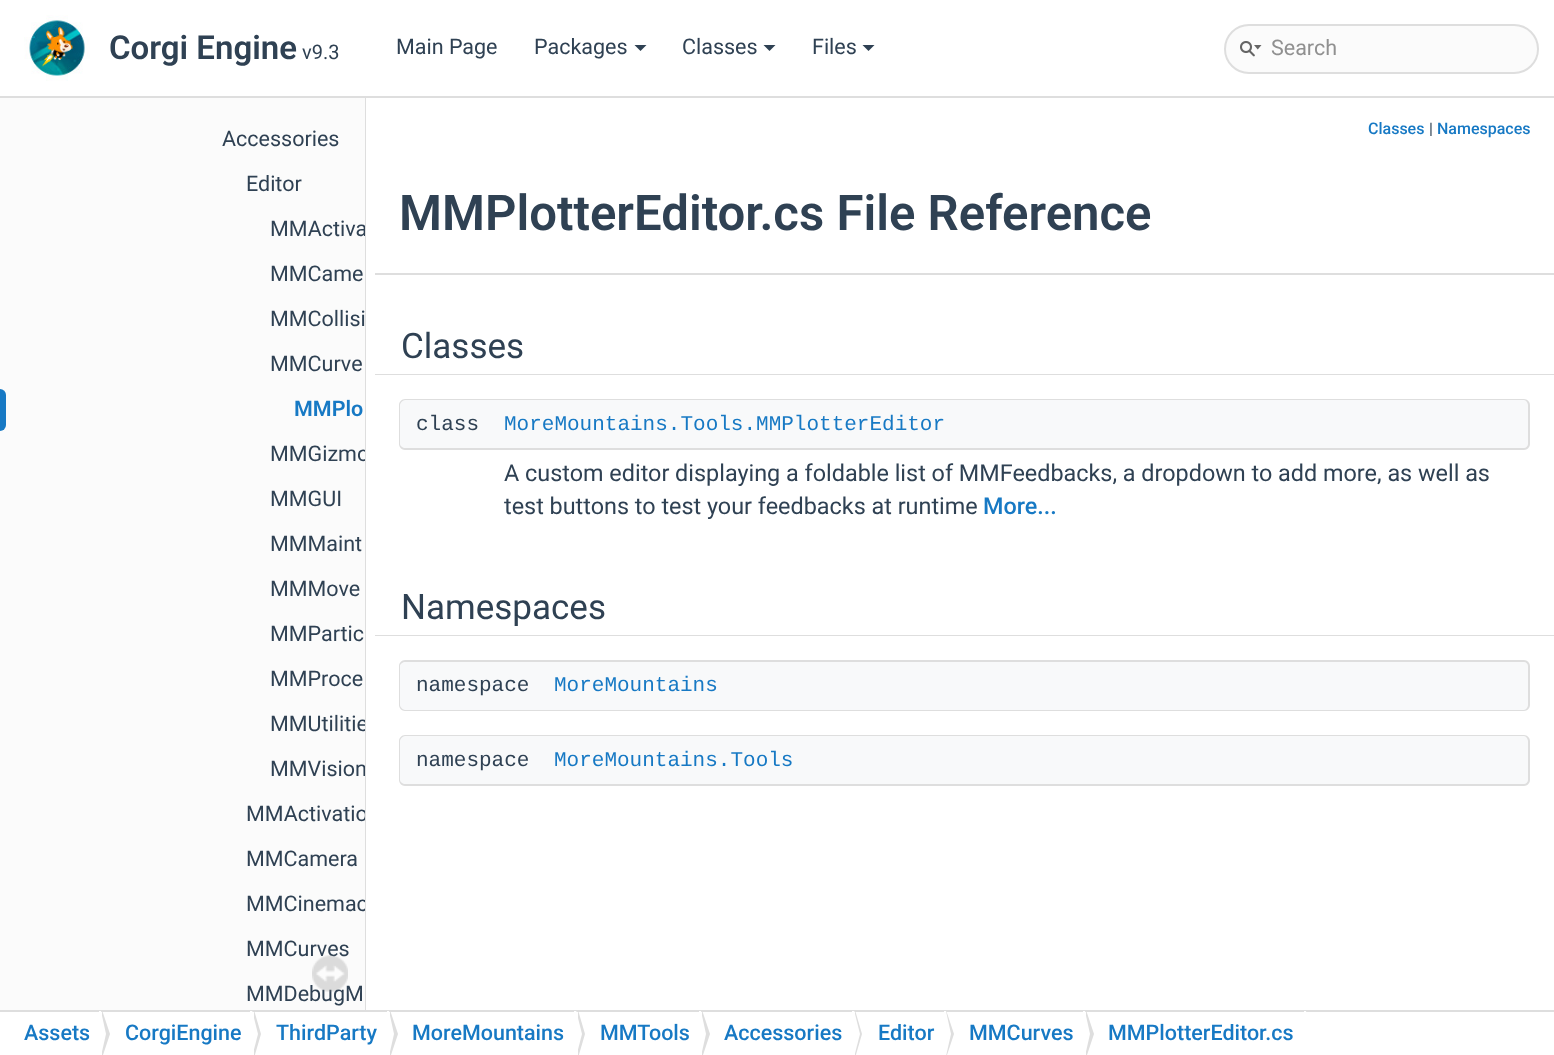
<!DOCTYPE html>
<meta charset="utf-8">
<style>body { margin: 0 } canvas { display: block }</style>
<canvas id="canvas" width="1554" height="1055"></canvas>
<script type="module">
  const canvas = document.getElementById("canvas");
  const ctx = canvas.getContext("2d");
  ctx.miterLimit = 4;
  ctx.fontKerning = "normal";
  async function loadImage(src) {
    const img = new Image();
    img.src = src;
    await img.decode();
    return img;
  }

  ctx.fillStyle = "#ffffff";
  ctx.fillRect(0, 0, 1554, 1055);
  ctx.fillStyle = "#dedede";
  ctx.fillRect(0, 96, 1554, 2);
  ctx.drawImage(await loadImage("img1.png"), 24, 15, 66, 66);
  ctx.font = "600 33px Roboto";
  ctx.fillStyle = "#2f4153";
  ctx.fillText("Corgi Engine", 109, 59);
  ctx.font = "20px Roboto";
  ctx.fillText("v9.3", 302, 59);
  ctx.font = "21.5px Roboto";
  ctx.fillText("Main Page", 396, 54);
  ctx.fillText("Packages", 534, 54);
  ctx.beginPath();
  ctx.moveTo(634.5, 45);
  ctx.lineTo(646.5, 45);
  ctx.lineTo(640.5, 51);
  ctx.closePath();
  ctx.fill();
  ctx.fillText("Classes", 682, 54);
  ctx.beginPath();
  ctx.moveTo(763.5, 45);
  ctx.lineTo(775.5, 45);
  ctx.lineTo(769.5, 51);
  ctx.closePath();
  ctx.fill();
  ctx.fillText("Files", 812, 54);
  ctx.beginPath();
  ctx.moveTo(862.5, 45);
  ctx.lineTo(874.5, 45);
  ctx.lineTo(868.5, 51);
  ctx.closePath();
  ctx.fill();
  ctx.fillStyle = "#fbfbfb";
  ctx.beginPath();
  ctx.roundRect(1225, 25, 313, 48, 24);
  ctx.fill();
  ctx.strokeStyle = "#dedede";
  ctx.lineWidth = 2;
  ctx.stroke();
  ctx.drawImage(await loadImage("img2.png"), 1240, 41, 22, 16);
  ctx.fillStyle = "#909090";
  ctx.fillText("Search", 1271, 55);
  ctx.fillStyle = "#fbfbfb";
  ctx.fillRect(0, 98, 365, 912);
  ctx.save();
  ctx.beginPath();
  ctx.rect(0, 98, 366, 912);
  ctx.clip();
  ctx.fillStyle = "#2f4153";
  ctx.fillText("MMActiva", 270, 236);
  ctx.fillText("MMGizmo", 270, 461);
  ctx.fillText("MMUtilitie", 270, 731);
  ctx.restore();
  ctx.fillStyle = "#2f4153";
  ctx.fillText("MMVision", 270, 776);
  ctx.save();
  ctx.beginPath();
  ctx.rect(0, 98, 366, 912);
  ctx.clip();
  ctx.fillText("MMActivatio", 246, 821);
  ctx.fillText("MMCinemac", 246, 911);
  ctx.restore();
  ctx.fillStyle = "#dedede";
  ctx.fillRect(365, 98, 1, 912);
  ctx.fillStyle = "#2f4153";
  ctx.fillText("Accessories", 222, 146);
  ctx.fillText("Editor", 246, 191);
  ctx.fillText("MMCame", 270, 281);
  ctx.fillText("MMCollisi", 270, 326);
  ctx.fillText("MMCurve", 270, 371);
  ctx.fillStyle = "#1779c4";
  ctx.beginPath();
  ctx.roundRect(0, 389, 6, 42, [0, 6, 6, 0]);
  ctx.fill();
  ctx.font = "600 21.5px Roboto";
  ctx.fillText("MMPlo", 294, 416);
  ctx.font = "21.5px Roboto";
  ctx.fillStyle = "#2f4153";
  ctx.fillText("MMGUI", 270, 506);
  ctx.fillText("MMMaint", 270, 551);
  ctx.fillText("MMMove", 270, 596);
  ctx.fillText("MMPartic", 270, 641);
  ctx.fillText("MMProce", 270, 686);
  ctx.fillText("MMCamera", 246, 866);
  ctx.fillText("MMCurves", 246, 956);
  ctx.fillText("MMDebugM", 246, 1001);
  ctx.drawImage(await loadImage("img3.png"), 312, 955, 36, 37);
  ctx.fillStyle = "#dedede";
  ctx.fillRect(375, 273, 1179, 2);
  ctx.font = "500 16px Roboto";
  ctx.fillStyle = "#1779c4";
  ctx.fillText("Classes", 1368, 134);
  ctx.font = "16px Roboto";
  ctx.fillStyle = "#2f4153";
  ctx.fillText("|", 1429, 134);
  ctx.font = "500 16px Roboto";
  ctx.fillStyle = "#1779c4";
  ctx.fillText("Namespaces", 1437, 134);
  ctx.font = "600 49.1px Roboto";
  ctx.fillStyle = "#2f4153";
  ctx.fillText("MMPlotterEditor.cs File Reference", 399, 230);
  ctx.save();
  ctx.beginPath();
  ctx.rect(375, 98, 1179, 912);
  ctx.clip();
  ctx.fillStyle = "#dedede";
  ctx.beginPath();
  ctx.moveTo(251, 315);
  ctx.lineTo(251, 375);
  ctx.lineTo(1379, 375);
  ctx.lineTo(1379, 374);
  ctx.lineTo(400, 374);
  ctx.lineTo(400, 315);
  ctx.closePath();
  ctx.fill();
  ctx.restore();
  ctx.fillStyle = "#dedede";
  ctx.beginPath();
  ctx.moveTo(551, 374);
  ctx.lineTo(551, 375);
  ctx.lineTo(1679, 375);
  ctx.lineTo(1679, 315);
  ctx.lineTo(1528, 315);
  ctx.lineTo(1528, 374);
  ctx.closePath();
  ctx.fill();
  ctx.save();
  ctx.beginPath();
  ctx.rect(375, 98, 1179, 912);
  ctx.clip();
  ctx.fillStyle = "#ffffff";
  ctx.beginPath();
  ctx.moveTo(251, 314);
  ctx.lineTo(251, 374);
  ctx.lineTo(1379, 374);
  ctx.lineTo(400, 374);
  ctx.lineTo(400, 314);
  ctx.closePath();
  ctx.fill();
  ctx.restore();
  ctx.fillStyle = "#ffffff";
  ctx.beginPath();
  ctx.moveTo(551, 374);
  ctx.lineTo(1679, 374);
  ctx.lineTo(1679, 314);
  ctx.lineTo(1528, 314);
  ctx.lineTo(1528, 374);
  ctx.closePath();
  ctx.fill();
  ctx.font = "35px Roboto";
  ctx.fillStyle = "#2f4153";
  ctx.fillText("Classes", 401, 358);
  ctx.fillStyle = "#f8f9fa";
  ctx.beginPath();
  ctx.roundRect(399, 399, 105, 51, [6, 0, 0, 6]);
  ctx.fill();
  ctx.fillStyle = "#dedede";
  ctx.beginPath();
  ctx.moveTo(405, 399);
  ctx.lineTo(504, 399);
  ctx.lineTo(504, 450);
  ctx.lineTo(405, 450);
  ctx.bezierCurveTo(402, 450, 399, 447, 399, 444);
  ctx.lineTo(399, 405);
  ctx.bezierCurveTo(399, 402, 402, 399, 405, 399);
  ctx.closePath();
  ctx.moveTo(405, 400);
  ctx.lineTo(504, 400);
  ctx.lineTo(504, 448);
  ctx.lineTo(405, 448);
  ctx.bezierCurveTo(403, 448, 400, 446, 400, 444);
  ctx.lineTo(400, 405);
  ctx.bezierCurveTo(400, 403, 403, 400, 405, 400);
  ctx.closePath();
  ctx.fill("evenodd");
  ctx.font = "21px Liberation Mono";
  ctx.fillStyle = "#2f4153";
  ctx.fillText("class", 416, 430);
  ctx.fillStyle = "#f8f9fa";
  ctx.beginPath();
  ctx.roundRect(504, 399, 1026, 51, [0, 6, 6, 0]);
  ctx.fill();
  ctx.fillStyle = "#dedede";
  ctx.beginPath();
  ctx.moveTo(504, 399);
  ctx.lineTo(1524, 399);
  ctx.bezierCurveTo(1527, 399, 1530, 402, 1530, 405);
  ctx.lineTo(1530, 444);
  ctx.bezierCurveTo(1530, 447, 1527, 450, 1524, 450);
  ctx.lineTo(504, 450);
  ctx.closePath();
  ctx.moveTo(504, 400);
  ctx.lineTo(1524, 400);
  ctx.bezierCurveTo(1526, 400, 1528, 403, 1528, 405);
  ctx.lineTo(1528, 444);
  ctx.bezierCurveTo(1528, 446, 1526, 448, 1524, 448);
  ctx.lineTo(504, 448);
  ctx.closePath();
  ctx.fill("evenodd");
  ctx.fillStyle = "#1779c4";
  ctx.fillText("MoreMountains.Tools.MMPlotterEditor", 504, 430);
  ctx.font = "23.4px Roboto";
  ctx.fillStyle = "#2f4153";
  ctx.fillText("A custom editor displaying a foldable list of MMFeedbacks, a dropdown to add more, as well as", 504, 481);
  ctx.fillText("test buttons to test your feedbacks at runtime", 504, 514);
  ctx.font = "500 23.4px Roboto";
  ctx.fillStyle = "#1779c4";
  ctx.fillText("More...", 983, 514);
  ctx.save();
  ctx.beginPath();
  ctx.rect(375, 98, 1179, 912);
  ctx.clip();
  ctx.fillStyle = "#dedede";
  ctx.beginPath();
  ctx.moveTo(251, 576);
  ctx.lineTo(251, 636);
  ctx.lineTo(1379, 636);
  ctx.lineTo(1379, 634);
  ctx.lineTo(400, 634);
  ctx.lineTo(400, 576);
  ctx.closePath();
  ctx.fill();
  ctx.restore();
  ctx.fillStyle = "#dedede";
  ctx.beginPath();
  ctx.moveTo(551, 634);
  ctx.lineTo(551, 636);
  ctx.lineTo(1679, 636);
  ctx.lineTo(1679, 576);
  ctx.lineTo(1528, 576);
  ctx.lineTo(1528, 634);
  ctx.closePath();
  ctx.fill();
  ctx.save();
  ctx.beginPath();
  ctx.rect(375, 98, 1179, 912);
  ctx.clip();
  ctx.fillStyle = "#ffffff";
  ctx.beginPath();
  ctx.moveTo(251, 575);
  ctx.lineTo(251, 635);
  ctx.lineTo(1379, 635);
  ctx.lineTo(1379, 634);
  ctx.lineTo(400, 634);
  ctx.lineTo(400, 575);
  ctx.closePath();
  ctx.fill();
  ctx.restore();
  ctx.fillStyle = "#ffffff";
  ctx.beginPath();
  ctx.moveTo(551, 634);
  ctx.lineTo(551, 635);
  ctx.lineTo(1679, 635);
  ctx.lineTo(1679, 575);
  ctx.lineTo(1528, 575);
  ctx.lineTo(1528, 634);
  ctx.closePath();
  ctx.fill();
  ctx.font = "35px Roboto";
  ctx.fillStyle = "#2f4153";
  ctx.fillText("Namespaces", 401, 619);
  ctx.fillStyle = "#f8f9fa";
  ctx.beginPath();
  ctx.roundRect(399, 660, 155, 51, [6, 0, 0, 6]);
  ctx.fill();
  ctx.fillStyle = "#dedede";
  ctx.beginPath();
  ctx.moveTo(405, 660);
  ctx.lineTo(554, 660);
  ctx.lineTo(554, 711);
  ctx.lineTo(405, 711);
  ctx.bezierCurveTo(402, 711, 399, 708, 399, 705);
  ctx.lineTo(399, 666);
  ctx.bezierCurveTo(399, 663, 402, 660, 405, 660);
  ctx.closePath();
  ctx.moveTo(405, 662);
  ctx.lineTo(554, 662);
  ctx.lineTo(554, 710);
  ctx.lineTo(405, 710);
  ctx.bezierCurveTo(403, 710, 400, 707, 400, 705);
  ctx.lineTo(400, 666);
  ctx.bezierCurveTo(400, 664, 403, 662, 405, 662);
  ctx.closePath();
  ctx.fill("evenodd");
  ctx.font = "21px Liberation Mono";
  ctx.fillStyle = "#2f4153";
  ctx.fillText("namespace", 416, 691);
  ctx.fillStyle = "#f8f9fa";
  ctx.beginPath();
  ctx.roundRect(554, 660, 976, 51, [0, 6, 6, 0]);
  ctx.fill();
  ctx.fillStyle = "#dedede";
  ctx.beginPath();
  ctx.moveTo(554, 660);
  ctx.lineTo(1524, 660);
  ctx.bezierCurveTo(1527, 660, 1530, 663, 1530, 666);
  ctx.lineTo(1530, 705);
  ctx.bezierCurveTo(1530, 708, 1527, 711, 1524, 711);
  ctx.lineTo(554, 711);
  ctx.closePath();
  ctx.moveTo(554, 662);
  ctx.lineTo(1524, 662);
  ctx.bezierCurveTo(1526, 662, 1528, 664, 1528, 666);
  ctx.lineTo(1528, 705);
  ctx.bezierCurveTo(1528, 707, 1526, 710, 1524, 710);
  ctx.lineTo(554, 710);
  ctx.closePath();
  ctx.fill("evenodd");
  ctx.fillStyle = "#1779c4";
  ctx.fillText("MoreMountains", 554, 691);
  ctx.fillStyle = "#f8f9fa";
  ctx.beginPath();
  ctx.roundRect(399, 735, 155, 51, [6, 0, 0, 6]);
  ctx.fill();
  ctx.fillStyle = "#dedede";
  ctx.beginPath();
  ctx.moveTo(405, 735);
  ctx.lineTo(554, 735);
  ctx.lineTo(554, 786);
  ctx.lineTo(405, 786);
  ctx.bezierCurveTo(402, 786, 399, 783, 399, 780);
  ctx.lineTo(399, 741);
  ctx.bezierCurveTo(399, 738, 402, 735, 405, 735);
  ctx.closePath();
  ctx.moveTo(405, 736);
  ctx.lineTo(554, 736);
  ctx.lineTo(554, 784);
  ctx.lineTo(405, 784);
  ctx.bezierCurveTo(403, 784, 400, 782, 400, 780);
  ctx.lineTo(400, 741);
  ctx.bezierCurveTo(400, 739, 403, 736, 405, 736);
  ctx.closePath();
  ctx.fill("evenodd");
  ctx.fillStyle = "#2f4153";
  ctx.fillText("namespace", 416, 766);
  ctx.fillStyle = "#f8f9fa";
  ctx.beginPath();
  ctx.roundRect(554, 735, 976, 51, [0, 6, 6, 0]);
  ctx.fill();
  ctx.fillStyle = "#dedede";
  ctx.beginPath();
  ctx.moveTo(554, 735);
  ctx.lineTo(1524, 735);
  ctx.bezierCurveTo(1527, 735, 1530, 738, 1530, 741);
  ctx.lineTo(1530, 780);
  ctx.bezierCurveTo(1530, 783, 1527, 786, 1524, 786);
  ctx.lineTo(554, 786);
  ctx.closePath();
  ctx.moveTo(554, 736);
  ctx.lineTo(1524, 736);
  ctx.bezierCurveTo(1526, 736, 1528, 739, 1528, 741);
  ctx.lineTo(1528, 780);
  ctx.bezierCurveTo(1528, 782, 1526, 784, 1524, 784);
  ctx.lineTo(554, 784);
  ctx.closePath();
  ctx.fill("evenodd");
  ctx.fillStyle = "#1779c4";
  ctx.fillText("MoreMountains.Tools", 554, 766);
  ctx.fillStyle = "#dedede";
  ctx.fillRect(0, 1010, 1554, 2);
  ctx.font = "500 21.5px Roboto";
  ctx.fillStyle = "#1779c4";
  ctx.fillText("Assets", 24, 1040);
  ctx.fillStyle = "#dedede";
  ctx.beginPath();
  ctx.moveTo(102, 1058);
  ctx.lineTo(102, 1010);
  ctx.lineTo(110, 1034);
  ctx.closePath();
  ctx.fill();
  ctx.save();
  ctx.beginPath();
  ctx.rect(0, 1011, 1554, 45);
  ctx.clip();
  ctx.fillStyle = "#ffffff";
  ctx.beginPath();
  ctx.moveTo(99, 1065);
  ctx.lineTo(99, 1002);
  ctx.lineTo(106, 1034);
  ctx.closePath();
  ctx.fill();
  ctx.restore();
  ctx.fillStyle = "#1779c4";
  ctx.fillText("CorgiEngine", 125, 1040);
  ctx.fillStyle = "#dedede";
  ctx.beginPath();
  ctx.moveTo(254, 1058);
  ctx.lineTo(254, 1010);
  ctx.lineTo(261, 1034);
  ctx.closePath();
  ctx.fill();
  ctx.save();
  ctx.beginPath();
  ctx.rect(0, 1011, 1554, 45);
  ctx.clip();
  ctx.fillStyle = "#ffffff";
  ctx.beginPath();
  ctx.moveTo(250, 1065);
  ctx.lineTo(250, 1002);
  ctx.lineTo(258, 1034);
  ctx.closePath();
  ctx.fill();
  ctx.restore();
  ctx.fillStyle = "#1779c4";
  ctx.fillText("ThirdParty", 276, 1040);
  ctx.fillStyle = "#dedede";
  ctx.beginPath();
  ctx.moveTo(390, 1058);
  ctx.lineTo(390, 1010);
  ctx.lineTo(398, 1034);
  ctx.closePath();
  ctx.fill();
  ctx.save();
  ctx.beginPath();
  ctx.rect(0, 1011, 1554, 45);
  ctx.clip();
  ctx.fillStyle = "#ffffff";
  ctx.beginPath();
  ctx.moveTo(387, 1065);
  ctx.lineTo(387, 1002);
  ctx.lineTo(394, 1034);
  ctx.closePath();
  ctx.fill();
  ctx.restore();
  ctx.fillStyle = "#1779c4";
  ctx.fillText("MoreMountains", 412, 1040);
  ctx.fillStyle = "#dedede";
  ctx.beginPath();
  ctx.moveTo(578, 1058);
  ctx.lineTo(578, 1010);
  ctx.lineTo(585, 1034);
  ctx.closePath();
  ctx.fill();
  ctx.save();
  ctx.beginPath();
  ctx.rect(0, 1011, 1554, 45);
  ctx.clip();
  ctx.fillStyle = "#ffffff";
  ctx.beginPath();
  ctx.moveTo(574, 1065);
  ctx.lineTo(574, 1002);
  ctx.lineTo(582, 1034);
  ctx.closePath();
  ctx.fill();
  ctx.restore();
  ctx.fillStyle = "#1779c4";
  ctx.fillText("MMTools", 600, 1040);
  ctx.fillStyle = "#dedede";
  ctx.beginPath();
  ctx.moveTo(702, 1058);
  ctx.lineTo(702, 1010);
  ctx.lineTo(710, 1034);
  ctx.closePath();
  ctx.fill();
  ctx.save();
  ctx.beginPath();
  ctx.rect(0, 1011, 1554, 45);
  ctx.clip();
  ctx.fillStyle = "#ffffff";
  ctx.beginPath();
  ctx.moveTo(699, 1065);
  ctx.lineTo(699, 1002);
  ctx.lineTo(706, 1034);
  ctx.closePath();
  ctx.fill();
  ctx.restore();
  ctx.fillStyle = "#1779c4";
  ctx.fillText("Accessories", 724, 1040);
  ctx.fillStyle = "#dedede";
  ctx.beginPath();
  ctx.moveTo(855, 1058);
  ctx.lineTo(855, 1010);
  ctx.lineTo(862, 1034);
  ctx.closePath();
  ctx.fill();
  ctx.save();
  ctx.beginPath();
  ctx.rect(0, 1011, 1554, 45);
  ctx.clip();
  ctx.fillStyle = "#ffffff";
  ctx.beginPath();
  ctx.moveTo(852, 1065);
  ctx.lineTo(852, 1002);
  ctx.lineTo(860, 1034);
  ctx.closePath();
  ctx.fill();
  ctx.restore();
  ctx.fillStyle = "#1779c4";
  ctx.fillText("Editor", 878, 1040);
  ctx.fillStyle = "#dedede";
  ctx.beginPath();
  ctx.moveTo(946, 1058);
  ctx.lineTo(946, 1010);
  ctx.lineTo(954, 1034);
  ctx.closePath();
  ctx.fill();
  ctx.save();
  ctx.beginPath();
  ctx.rect(0, 1011, 1554, 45);
  ctx.clip();
  ctx.fillStyle = "#ffffff";
  ctx.beginPath();
  ctx.moveTo(944, 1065);
  ctx.lineTo(944, 1002);
  ctx.lineTo(951, 1034);
  ctx.closePath();
  ctx.fill();
  ctx.restore();
  ctx.fillStyle = "#1779c4";
  ctx.fillText("MMCurves", 969, 1040);
  ctx.fillStyle = "#dedede";
  ctx.beginPath();
  ctx.moveTo(1086, 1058);
  ctx.lineTo(1086, 1010);
  ctx.lineTo(1094, 1034);
  ctx.closePath();
  ctx.fill();
  ctx.save();
  ctx.beginPath();
  ctx.rect(0, 1011, 1554, 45);
  ctx.clip();
  ctx.fillStyle = "#ffffff";
  ctx.beginPath();
  ctx.moveTo(1083, 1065);
  ctx.lineTo(1083, 1002);
  ctx.lineTo(1090, 1034);
  ctx.closePath();
  ctx.fill();
  ctx.restore();
  ctx.fillStyle = "#1779c4";
  ctx.fillText("MMPlotterEditor.cs", 1108, 1040);
  ctx.save();
  ctx.beginPath();
  ctx.rect(0, 1011, 1554, 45);
  ctx.clip();
  ctx.fillStyle = "#ffffff";
  ctx.beginPath();
  ctx.moveTo(1304, 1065);
  ctx.lineTo(1304, 1002);
  ctx.lineTo(1311, 1034);
  ctx.closePath();
  ctx.fill();
  ctx.restore();
</script>
